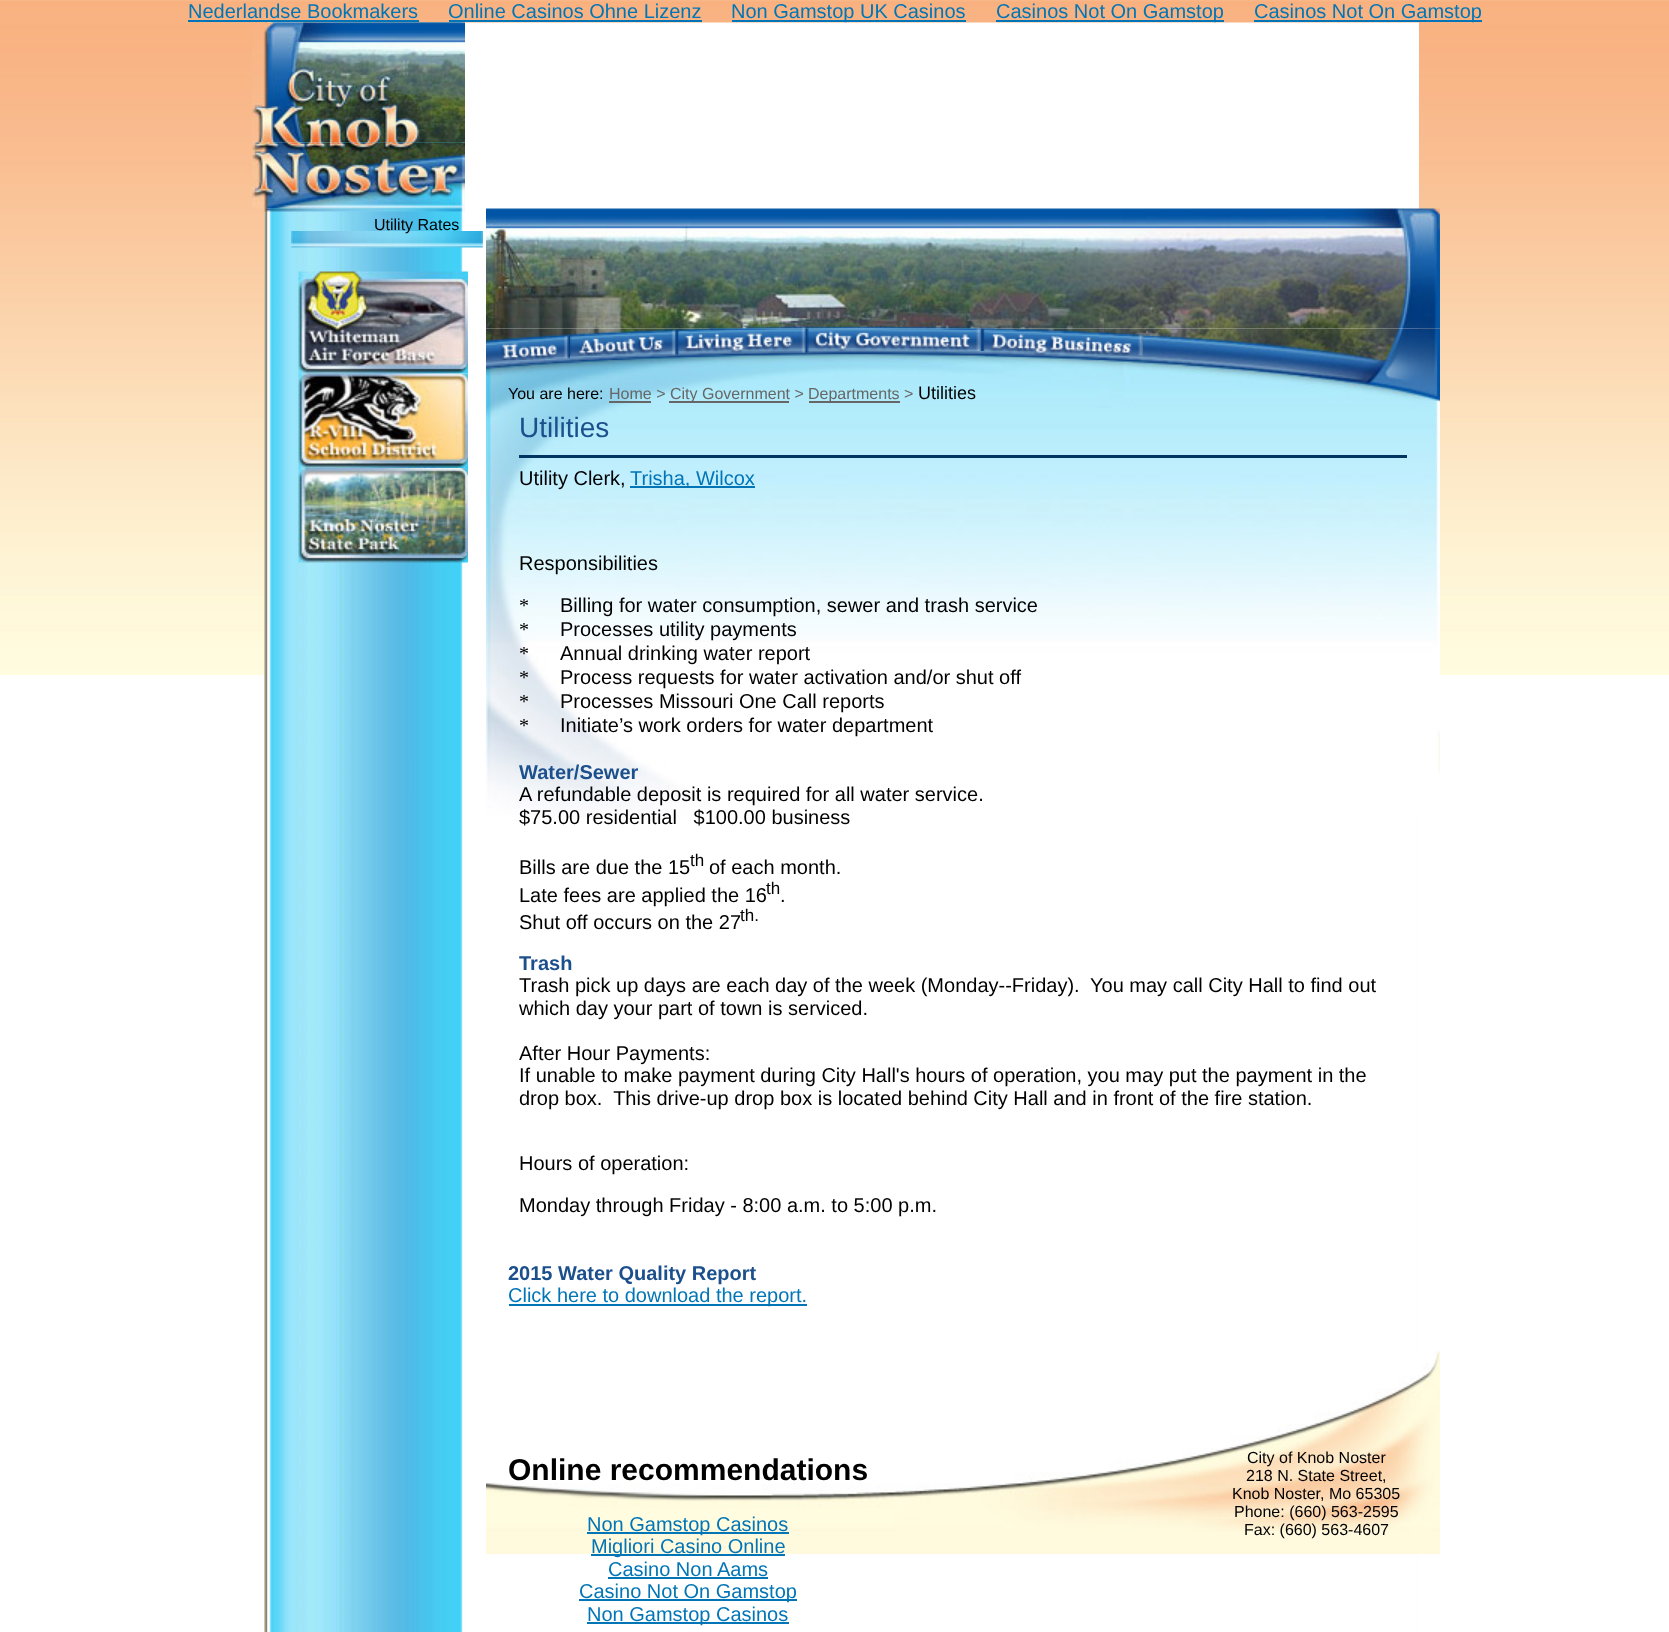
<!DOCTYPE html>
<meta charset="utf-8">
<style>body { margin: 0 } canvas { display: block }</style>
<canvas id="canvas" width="1669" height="1632"></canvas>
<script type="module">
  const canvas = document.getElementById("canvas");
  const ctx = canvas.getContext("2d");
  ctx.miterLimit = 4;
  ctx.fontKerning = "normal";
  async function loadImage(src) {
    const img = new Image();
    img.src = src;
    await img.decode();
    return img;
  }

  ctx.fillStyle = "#ffffff";
  ctx.fillRect(0, 0, 1669, 1632);
  ctx.drawImage(await loadImage("img1.png"), 0, 0, 1669, 25);
  ctx.font = "20px Liberation Sans";
  ctx.fillStyle = "#0275b6";
  ctx.fillText("Nederlandse Bookmakers", 188, 18);
  ctx.fillRect(188, 20, 231, 2);
  ctx.fillText("Online Casinos Ohne Lizenz", 448, 18);
  ctx.fillRect(449, 20, 253, 2);
  ctx.fillRect(732, 20, 234, 2);
  ctx.drawImage(await loadImage("img2.png"), 0, 25, 1669, 650);
  ctx.drawImage(await loadImage("img3.png"), 264, 22, 1155, 1610);
  ctx.fillText("Non Gamstop UK Casinos", 731, 18);
  ctx.fillRect(996, 20, 228, 2);
  ctx.fillText("Casinos Not On Gamstop", 996, 18);
  ctx.fillRect(1254, 20, 228, 2);
  ctx.fillText("Casinos Not On Gamstop", 1254, 18);
  ctx.drawImage(await loadImage("img4.png"), 252, 22, 213, 121);
  ctx.drawImage(await loadImage("img5.png"), 252, 142, 213, 67);
  ctx.drawImage(await loadImage("img6.png"), 263, 208, 202, 4);
  ctx.drawImage(await loadImage("img7.png"), 291, 231, 192, 17);
  ctx.font = "16px Liberation Sans";
  ctx.fillStyle = "#000000";
  ctx.fillText("Utility Rates", 374, 230);
  ctx.drawImage(await loadImage("img8.png"), 298, 271, 170, 103);
  ctx.drawImage(await loadImage("img9.png"), 298, 373, 170, 95);
  ctx.drawImage(await loadImage("img10.png"), 298, 468, 170, 95);
  ctx.drawImage(await loadImage("img11.png"), 486, 328, 954, 489);
  ctx.drawImage(await loadImage("img12.png"), 486, 208, 954, 121);
  ctx.drawImage(await loadImage("img13.png"), 492, 335, 78, 25);
  ctx.drawImage(await loadImage("img14.png"), 570, 329, 110, 27);
  ctx.drawImage(await loadImage("img15.png"), 679, 328, 131, 25);
  ctx.drawImage(await loadImage("img16.png"), 810, 328, 176, 23);
  ctx.drawImage(await loadImage("img17.png"), 985, 328, 158, 28);
  ctx.fillText("You are here:", 508, 399);
  ctx.fillStyle = "#666666";
  ctx.fillText("Home >", 609, 399);
  ctx.fillRect(609, 401, 42, 2);
  ctx.fillRect(669, 401, 120, 2);
  ctx.fillText("City Government >", 670, 399);
  ctx.fillRect(809, 401, 91, 2);
  ctx.fillText("Departments >", 808, 399);
  ctx.font = "18px Liberation Sans";
  ctx.fillStyle = "#000000";
  ctx.fillText("Utilities", 918, 399);
  ctx.font = "28px Liberation Sans";
  ctx.fillStyle = "#1c508c";
  ctx.fillText("Utilities", 519, 437);
  ctx.fillStyle = "#003561";
  ctx.fillRect(519, 455, 888, 3);
  ctx.font = "20px Liberation Sans";
  ctx.fillStyle = "#000000";
  ctx.fillText("Utility Clerk,", 519, 485);
  ctx.fillStyle = "#0275b6";
  ctx.fillRect(630, 486, 125, 2);
  ctx.fillText("Trisha, Wilcox", 630, 485);
  ctx.fillStyle = "#000000";
  ctx.fillText("Responsibilities", 519, 570);
  ctx.font = "20px Liberation Serif";
  ctx.fillText("*", 519, 612);
  ctx.font = "20px Liberation Sans";
  ctx.fillText("Billing for water consumption, sewer and trash service", 560, 612);
  ctx.font = "20px Liberation Serif";
  ctx.fillText("*", 519, 636);
  ctx.font = "20px Liberation Sans";
  ctx.fillText("Processes utility payments", 560, 636);
  ctx.font = "20px Liberation Serif";
  ctx.fillText("*", 519, 660);
  ctx.font = "20px Liberation Sans";
  ctx.fillText("Annual drinking water report", 560, 660);
  ctx.font = "20px Liberation Serif";
  ctx.fillText("*", 519, 684);
  ctx.font = "20px Liberation Sans";
  ctx.fillText("Process requests for water activation and/or shut off", 560, 684);
  ctx.font = "20px Liberation Serif";
  ctx.fillText("*", 519, 708);
  ctx.font = "20px Liberation Sans";
  ctx.fillText("Processes Missouri One Call reports", 560, 708);
  ctx.font = "20px Liberation Serif";
  ctx.fillText("*", 519, 732);
  ctx.font = "20px Liberation Sans";
  ctx.fillText("Initiate’s work orders for water department", 560, 732);
  ctx.font = "bold 20px Liberation Sans";
  ctx.fillStyle = "#1c508c";
  ctx.fillText("Water/Sewer", 519, 779);
  ctx.font = "20px Liberation Sans";
  ctx.fillStyle = "#000000";
  ctx.fillText("A refundable deposit is required for all water service.", 519, 801);
  ctx.fillText("$75.00 residential   $100.00 business", 519, 824);
  ctx.fillText("Bills are due the 15", 519, 874);
  ctx.font = "17px Liberation Sans";
  ctx.fillText("th", 690, 866);
  ctx.font = "20px Liberation Sans";
  ctx.fillText("of each month.", 709, 874);
  ctx.fillText("Late fees are applied the 16", 519, 902);
  ctx.font = "17px Liberation Sans";
  ctx.fillText("th", 766, 894);
  ctx.font = "20px Liberation Sans";
  ctx.fillText(".", 780, 902);
  ctx.fillText("Shut off occurs on the 27", 519, 929);
  ctx.font = "17px Liberation Sans";
  ctx.fillText("th.", 740, 921);
  ctx.font = "bold 20px Liberation Sans";
  ctx.fillStyle = "#1c508c";
  ctx.fillText("Trash", 519, 970);
  ctx.font = "20px Liberation Sans";
  ctx.fillStyle = "#000000";
  ctx.fillText("Trash pick up days are each day of the week (Monday--Friday).", 519, 992);
  ctx.fillText("You may call City Hall to find out", 1090, 992);
  ctx.fillText("which day your part of town is serviced.", 519, 1015);
  ctx.fillText("After Hour Payments:", 519, 1060);
  ctx.fillText("If unable to make payment during City Hall's hours of operation, you may put the payment in the", 519, 1082);
  ctx.fillText("drop box.  This drive-up drop box is located behind City Hall and in front of the fire station.", 519, 1105);
  ctx.fillText("Hours of operation:", 519, 1170);
  ctx.fillText("Monday through Friday - 8:00 a.m. to 5:00 p.m.", 519, 1212);
  ctx.font = "bold 20px Liberation Sans";
  ctx.fillStyle = "#1c508c";
  ctx.fillText("2015 Water Quality Report", 508, 1280);
  ctx.fillStyle = "#0275b6";
  ctx.fillRect(509, 1304, 298, 2);
  ctx.font = "20px Liberation Sans";
  ctx.fillText("Click here to download the report.", 508, 1302);
  ctx.drawImage(await loadImage("img18.png"), 486, 1351, 954, 203);
  ctx.font = "bold 30px Liberation Sans";
  ctx.fillStyle = "#000000";
  ctx.fillText("Online recommendations", 508, 1480);
  ctx.fillStyle = "#0275b6";
  ctx.fillRect(587, 1532, 202, 2);
  ctx.font = "20px Liberation Sans";
  ctx.fillText("Non Gamstop Casinos", 587, 1531);
  ctx.fillRect(591, 1554, 194, 2);
  ctx.fillText("Migliori Casino Online", 591, 1553);
  ctx.fillText("Casino Non Aams", 608, 1576);
  ctx.fillRect(608, 1577, 160, 2);
  ctx.fillRect(579, 1599, 218, 2);
  ctx.fillText("Casino Not On Gamstop", 579, 1598);
  ctx.fillRect(587, 1622, 202, 2);
  ctx.fillText("Non Gamstop Casinos", 587, 1621);
  ctx.font = "16px Liberation Sans";
  ctx.fillStyle = "#000000";
  ctx.fillText("City of Knob Noster", 1247, 1463);
  ctx.fillText("218 N. State Street,", 1246, 1481);
  ctx.fillText("Knob Noster, Mo 65305", 1232, 1499);
  ctx.fillText("Phone: (660) 563-2595", 1234, 1517);
  ctx.fillText("Fax: (660) 563-4607", 1244, 1535);
</script>
